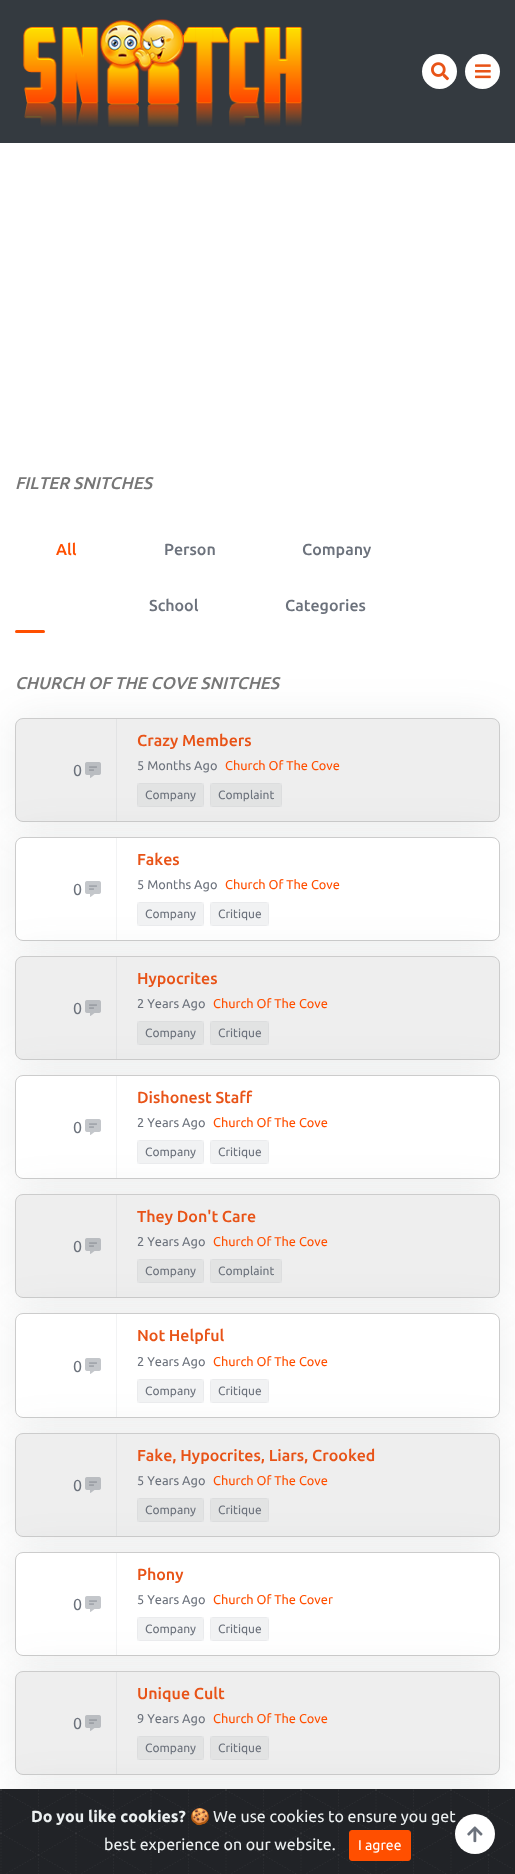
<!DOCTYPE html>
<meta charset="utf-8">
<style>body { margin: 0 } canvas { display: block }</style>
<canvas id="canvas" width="515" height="1874"></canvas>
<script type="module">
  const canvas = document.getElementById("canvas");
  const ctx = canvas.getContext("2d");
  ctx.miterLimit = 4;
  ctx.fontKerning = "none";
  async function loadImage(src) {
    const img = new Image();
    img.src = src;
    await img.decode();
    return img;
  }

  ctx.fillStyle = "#ffffff";
  ctx.fillRect(0, 0, 515, 1874);
  ctx.fillStyle = "#343a40";
  ctx.fillRect(0, 0, 515, 143);
  ctx.drawImage(await loadImage("img1.png"), 23, 19, 280, 108);
  ctx.fillStyle = "#ffffff";
  ctx.beginPath();
  ctx.arc(439.5, 71.5, 17.5, 0, Math.PI * 2);
  ctx.fill();
  ctx.drawImage(await loadImage("img2.png"), 431, 62, 18, 19);
  ctx.beginPath();
  ctx.arc(482.5, 71.5, 17.5, 0, Math.PI * 2);
  ctx.fill();
  ctx.drawImage(await loadImage("img3.png"), 475, 64, 16, 15);
  ctx.font = "italic 500 17px Ubuntu";
  ctx.fillStyle = "#777777";
  ctx.fillText("FILTER SNITCHES", 15, 489);
  ctx.font = "500 16px Ubuntu";
  ctx.fillStyle = "#ff4f00";
  ctx.fillText("All", 56, 555);
  ctx.fillStyle = "#6c727c";
  ctx.fillText("Person", 164, 555);
  ctx.fillText("Company", 302, 555);
  ctx.fillText("School", 149, 611);
  ctx.fillText("Categories", 285, 611);
  ctx.fillStyle = "#ff4f00";
  ctx.beginPath();
  ctx.roundRect(15, 630, 30, 3, 1.5);
  ctx.fill();
  ctx.fillStyle = "rgba(82, 85, 90, 0.1)";
  ctx.filter = "blur(20px)";
  ctx.beginPath();
  ctx.roundRect(15, 718, 485, 104, 8);
  ctx.fill();
  ctx.filter = "none";
  ctx.font = "italic 500 17px Ubuntu";
  ctx.fillStyle = "#777777";
  ctx.fillText("CHURCH OF THE COVE SNITCHES", 15, 689);
  ctx.fillStyle = "#eeeeee";
  ctx.beginPath();
  ctx.roundRect(15.5, 718.5, 484, 103, 7.5);
  ctx.fill();
  ctx.strokeStyle = "#cccccc";
  ctx.stroke();
  ctx.fillStyle = "rgba(82, 85, 90, 0.1)";
  ctx.filter = "blur(20px)";
  ctx.beginPath();
  ctx.roundRect(15, 837, 485, 104, 8);
  ctx.fill();
  ctx.filter = "none";
  ctx.font = "16px Ubuntu";
  ctx.fillStyle = "#6c727c";
  ctx.fillText("0", 73, 776);
  ctx.drawImage(await loadImage("img5.png"), 89, 766, 8, 5);
  ctx.drawImage(await loadImage("img4.png"), 85, 762, 16, 16);
  ctx.fillStyle = "rgba(128, 137, 150, 0.1)";
  ctx.fillRect(116, 719, 1, 102);
  ctx.font = "500 16px Ubuntu";
  ctx.fillStyle = "#e85317";
  ctx.fillText("Crazy Members", 137, 746);
  ctx.font = "12.75px Ubuntu";
  ctx.fillStyle = "#6c727c";
  ctx.fillText("5 Months Ago", 137, 770);
  ctx.fillStyle = "#ff4f00";
  ctx.fillText("Church Of The Cove", 225, 770);
  ctx.fillStyle = "#e2e3e3";
  ctx.beginPath();
  ctx.roundRect(137, 783, 67, 24, 4);
  ctx.fill();
  ctx.strokeStyle = "rgba(121, 127, 135, 0.05)";
  ctx.strokeRect(137.5, 783.5, 66, 23);
  ctx.font = "12px Ubuntu";
  ctx.fillStyle = "#6c727c";
  ctx.fillText("Company", 145, 799);
  ctx.fillStyle = "#e2e3e3";
  ctx.beginPath();
  ctx.roundRect(210, 783, 72, 24, 4);
  ctx.fill();
  ctx.strokeRect(210.5, 783.5, 71, 23);
  ctx.fillStyle = "#6c727c";
  ctx.fillText("Complaint", 218, 799);
  ctx.fillStyle = "#ffffff";
  ctx.beginPath();
  ctx.roundRect(15.5, 837.5, 484, 103, 7.5);
  ctx.fill();
  ctx.strokeStyle = "#cccccc";
  ctx.stroke();
  ctx.fillStyle = "rgba(82, 85, 90, 0.1)";
  ctx.filter = "blur(20px)";
  ctx.beginPath();
  ctx.roundRect(15, 956, 485, 104, 8);
  ctx.fill();
  ctx.filter = "none";
  ctx.font = "16px Ubuntu";
  ctx.fillStyle = "#6c727c";
  ctx.fillText("0", 73, 895);
  ctx.drawImage(await loadImage("img7.png"), 89, 885, 8, 5);
  ctx.drawImage(await loadImage("img6.png"), 85, 881, 16, 16);
  ctx.fillStyle = "rgba(128, 137, 150, 0.1)";
  ctx.fillRect(116, 838, 1, 102);
  ctx.font = "500 16px Ubuntu";
  ctx.fillStyle = "#e85317";
  ctx.fillText("Fakes", 137, 865);
  ctx.font = "12.75px Ubuntu";
  ctx.fillStyle = "#6c727c";
  ctx.fillText("5 Months Ago", 137, 889);
  ctx.fillStyle = "#ff4f00";
  ctx.fillText("Church Of The Cove", 225, 889);
  ctx.fillStyle = "#f1f2f3";
  ctx.beginPath();
  ctx.roundRect(137, 902, 67, 24, 4);
  ctx.fill();
  ctx.strokeStyle = "rgba(121, 127, 135, 0.05)";
  ctx.strokeRect(137.5, 902.5, 66, 23);
  ctx.font = "12px Ubuntu";
  ctx.fillStyle = "#6c727c";
  ctx.fillText("Company", 145, 918);
  ctx.fillStyle = "#f1f2f3";
  ctx.beginPath();
  ctx.roundRect(210, 902, 59, 24, 4);
  ctx.fill();
  ctx.strokeRect(210.5, 902.5, 58, 23);
  ctx.fillStyle = "#6c727c";
  ctx.fillText("Critique", 218, 918);
  ctx.fillStyle = "#eeeeee";
  ctx.beginPath();
  ctx.roundRect(15.5, 956.5, 484, 103, 7.5);
  ctx.fill();
  ctx.strokeStyle = "#cccccc";
  ctx.stroke();
  ctx.fillStyle = "rgba(82, 85, 90, 0.1)";
  ctx.filter = "blur(20px)";
  ctx.beginPath();
  ctx.roundRect(15, 1075, 485, 104, 8);
  ctx.fill();
  ctx.filter = "none";
  ctx.font = "16px Ubuntu";
  ctx.fillStyle = "#6c727c";
  ctx.fillText("0", 73, 1014);
  ctx.drawImage(await loadImage("img5.png"), 89, 1004, 8, 5);
  ctx.drawImage(await loadImage("img4.png"), 85, 1000, 16, 16);
  ctx.fillStyle = "rgba(128, 137, 150, 0.1)";
  ctx.fillRect(116, 957, 1, 102);
  ctx.font = "500 16px Ubuntu";
  ctx.fillStyle = "#e85317";
  ctx.fillText("Hypocrites", 137, 984);
  ctx.font = "12.75px Ubuntu";
  ctx.fillStyle = "#6c727c";
  ctx.fillText("2 Years Ago", 137, 1008);
  ctx.fillStyle = "#ff4f00";
  ctx.fillText("Church Of The Cove", 213, 1008);
  ctx.fillStyle = "#e2e3e3";
  ctx.beginPath();
  ctx.roundRect(137, 1021, 67, 24, 4);
  ctx.fill();
  ctx.strokeStyle = "rgba(121, 127, 135, 0.05)";
  ctx.strokeRect(137.5, 1021.5, 66, 23);
  ctx.font = "12px Ubuntu";
  ctx.fillStyle = "#6c727c";
  ctx.fillText("Company", 145, 1037);
  ctx.fillStyle = "#e2e3e3";
  ctx.beginPath();
  ctx.roundRect(210, 1021, 59, 24, 4);
  ctx.fill();
  ctx.strokeRect(210.5, 1021.5, 58, 23);
  ctx.fillStyle = "#6c727c";
  ctx.fillText("Critique", 218, 1037);
  ctx.fillStyle = "#ffffff";
  ctx.beginPath();
  ctx.roundRect(15.5, 1075.5, 484, 103, 7.5);
  ctx.fill();
  ctx.strokeStyle = "#cccccc";
  ctx.stroke();
  ctx.fillStyle = "rgba(82, 85, 90, 0.1)";
  ctx.filter = "blur(20px)";
  ctx.beginPath();
  ctx.roundRect(15, 1194, 485, 104, 8);
  ctx.fill();
  ctx.filter = "none";
  ctx.font = "16px Ubuntu";
  ctx.fillStyle = "#6c727c";
  ctx.fillText("0", 73, 1133);
  ctx.drawImage(await loadImage("img7.png"), 89, 1123, 8, 5);
  ctx.drawImage(await loadImage("img6.png"), 85, 1119, 16, 16);
  ctx.fillStyle = "rgba(128, 137, 150, 0.1)";
  ctx.fillRect(116, 1076, 1, 102);
  ctx.font = "500 16px Ubuntu";
  ctx.fillStyle = "#e85317";
  ctx.fillText("Dishonest Staff", 137, 1103);
  ctx.font = "12.75px Ubuntu";
  ctx.fillStyle = "#6c727c";
  ctx.fillText("2 Years Ago", 137, 1127);
  ctx.fillStyle = "#ff4f00";
  ctx.fillText("Church Of The Cove", 213, 1127);
  ctx.fillStyle = "#f1f2f3";
  ctx.beginPath();
  ctx.roundRect(137, 1140, 67, 24, 4);
  ctx.fill();
  ctx.strokeStyle = "rgba(121, 127, 135, 0.05)";
  ctx.strokeRect(137.5, 1140.5, 66, 23);
  ctx.font = "12px Ubuntu";
  ctx.fillStyle = "#6c727c";
  ctx.fillText("Company", 145, 1156);
  ctx.fillStyle = "#f1f2f3";
  ctx.beginPath();
  ctx.roundRect(210, 1140, 59, 24, 4);
  ctx.fill();
  ctx.strokeRect(210.5, 1140.5, 58, 23);
  ctx.fillStyle = "#6c727c";
  ctx.fillText("Critique", 218, 1156);
  ctx.fillStyle = "#eeeeee";
  ctx.beginPath();
  ctx.roundRect(15.5, 1194.5, 484, 103, 7.5);
  ctx.fill();
  ctx.strokeStyle = "#cccccc";
  ctx.stroke();
  ctx.fillStyle = "rgba(82, 85, 90, 0.1)";
  ctx.filter = "blur(20px)";
  ctx.beginPath();
  ctx.roundRect(15, 1313, 485, 105, 8);
  ctx.fill();
  ctx.filter = "none";
  ctx.font = "16px Ubuntu";
  ctx.fillStyle = "#6c727c";
  ctx.fillText("0", 73, 1252);
  ctx.drawImage(await loadImage("img5.png"), 89, 1242, 8, 5);
  ctx.drawImage(await loadImage("img4.png"), 85, 1238, 16, 16);
  ctx.fillStyle = "rgba(128, 137, 150, 0.1)";
  ctx.fillRect(116, 1195, 1, 102);
  ctx.font = "500 16px Ubuntu";
  ctx.fillStyle = "#e85317";
  ctx.fillText("They Don't Care", 137, 1222);
  ctx.font = "12.75px Ubuntu";
  ctx.fillStyle = "#6c727c";
  ctx.fillText("2 Years Ago", 137, 1246);
  ctx.fillStyle = "#ff4f00";
  ctx.fillText("Church Of The Cove", 213, 1246);
  ctx.fillStyle = "#e2e3e3";
  ctx.beginPath();
  ctx.roundRect(137, 1259, 67, 24, 4);
  ctx.fill();
  ctx.strokeStyle = "rgba(121, 127, 135, 0.05)";
  ctx.strokeRect(137.5, 1259.5, 66, 23);
  ctx.font = "12px Ubuntu";
  ctx.fillStyle = "#6c727c";
  ctx.fillText("Company", 145, 1275);
  ctx.fillStyle = "#e2e3e3";
  ctx.beginPath();
  ctx.roundRect(210, 1259, 72, 24, 4);
  ctx.fill();
  ctx.strokeRect(210.5, 1259.5, 71, 23);
  ctx.fillStyle = "#6c727c";
  ctx.fillText("Complaint", 218, 1275);
  ctx.fillStyle = "#ffffff";
  ctx.beginPath();
  ctx.roundRect(15.5, 1313.5, 484, 104, 7.5);
  ctx.fill();
  ctx.strokeStyle = "#cccccc";
  ctx.stroke();
  ctx.fillStyle = "rgba(82, 85, 90, 0.1)";
  ctx.filter = "blur(20px)";
  ctx.beginPath();
  ctx.roundRect(15, 1433, 485, 104, 8);
  ctx.fill();
  ctx.filter = "none";
  ctx.font = "16px Ubuntu";
  ctx.fillStyle = "#6c727c";
  ctx.fillText("0", 73, 1372);
  ctx.drawImage(await loadImage("img7.png"), 89, 1362, 8, 5);
  ctx.drawImage(await loadImage("img6.png"), 85, 1358, 16, 16);
  ctx.fillStyle = "rgba(128, 137, 150, 0.1)";
  ctx.fillRect(116, 1314, 1, 103);
  ctx.font = "500 16px Ubuntu";
  ctx.fillStyle = "#e85317";
  ctx.fillText("Not Helpful", 137, 1341);
  ctx.font = "12.75px Ubuntu";
  ctx.fillStyle = "#6c727c";
  ctx.fillText("2 Years Ago", 137, 1366);
  ctx.fillStyle = "#ff4f00";
  ctx.fillText("Church Of The Cove", 213, 1366);
  ctx.fillStyle = "#f1f2f3";
  ctx.beginPath();
  ctx.roundRect(137, 1379, 67, 24, 4);
  ctx.fill();
  ctx.strokeStyle = "rgba(121, 127, 135, 0.05)";
  ctx.strokeRect(137.5, 1379.5, 66, 23);
  ctx.font = "12px Ubuntu";
  ctx.fillStyle = "#6c727c";
  ctx.fillText("Company", 145, 1395);
  ctx.fillStyle = "#f1f2f3";
  ctx.beginPath();
  ctx.roundRect(210, 1379, 59, 24, 4);
  ctx.fill();
  ctx.strokeRect(210.5, 1379.5, 58, 23);
  ctx.fillStyle = "#6c727c";
  ctx.fillText("Critique", 218, 1395);
  ctx.fillStyle = "#eeeeee";
  ctx.beginPath();
  ctx.roundRect(15.5, 1433.5, 484, 103, 7.5);
  ctx.fill();
  ctx.strokeStyle = "#cccccc";
  ctx.stroke();
  ctx.fillStyle = "rgba(82, 85, 90, 0.1)";
  ctx.filter = "blur(20px)";
  ctx.beginPath();
  ctx.roundRect(15, 1552, 485, 104, 8);
  ctx.fill();
  ctx.filter = "none";
  ctx.font = "16px Ubuntu";
  ctx.fillStyle = "#6c727c";
  ctx.fillText("0", 73, 1491);
  ctx.drawImage(await loadImage("img5.png"), 89, 1481, 8, 5);
  ctx.drawImage(await loadImage("img4.png"), 85, 1477, 16, 16);
  ctx.fillStyle = "rgba(128, 137, 150, 0.1)";
  ctx.fillRect(116, 1434, 1, 102);
  ctx.font = "500 16px Ubuntu";
  ctx.fillStyle = "#e85317";
  ctx.fillText("Fake, Hypocrites, Liars, Crooked", 137, 1461);
  ctx.font = "12.75px Ubuntu";
  ctx.fillStyle = "#6c727c";
  ctx.fillText("5 Years Ago", 137, 1485);
  ctx.fillStyle = "#ff4f00";
  ctx.fillText("Church Of The Cove", 213, 1485);
  ctx.fillStyle = "#e2e3e3";
  ctx.beginPath();
  ctx.roundRect(137, 1498, 67, 24, 4);
  ctx.fill();
  ctx.strokeStyle = "rgba(121, 127, 135, 0.05)";
  ctx.strokeRect(137.5, 1498.5, 66, 23);
  ctx.font = "12px Ubuntu";
  ctx.fillStyle = "#6c727c";
  ctx.fillText("Company", 145, 1514);
  ctx.fillStyle = "#e2e3e3";
  ctx.beginPath();
  ctx.roundRect(210, 1498, 59, 24, 4);
  ctx.fill();
  ctx.strokeRect(210.5, 1498.5, 58, 23);
  ctx.fillStyle = "#6c727c";
  ctx.fillText("Critique", 218, 1514);
  ctx.fillStyle = "#ffffff";
  ctx.beginPath();
  ctx.roundRect(15.5, 1552.5, 484, 103, 7.5);
  ctx.fill();
  ctx.strokeStyle = "#cccccc";
  ctx.stroke();
  ctx.fillStyle = "rgba(82, 85, 90, 0.1)";
  ctx.filter = "blur(20px)";
  ctx.beginPath();
  ctx.roundRect(15, 1671, 485, 104, 8);
  ctx.fill();
  ctx.filter = "none";
  ctx.font = "16px Ubuntu";
  ctx.fillStyle = "#6c727c";
  ctx.fillText("0", 73, 1610);
  ctx.drawImage(await loadImage("img7.png"), 89, 1600, 8, 5);
  ctx.drawImage(await loadImage("img6.png"), 85, 1596, 16, 16);
  ctx.fillStyle = "rgba(128, 137, 150, 0.1)";
  ctx.fillRect(116, 1553, 1, 102);
  ctx.font = "500 16px Ubuntu";
  ctx.fillStyle = "#e85317";
  ctx.fillText("Phony", 137, 1580);
  ctx.font = "12.75px Ubuntu";
  ctx.fillStyle = "#6c727c";
  ctx.fillText("5 Years Ago", 137, 1604);
  ctx.fillStyle = "#ff4f00";
  ctx.fillText("Church Of The Cover", 213, 1604);
  ctx.fillStyle = "#f1f2f3";
  ctx.beginPath();
  ctx.roundRect(137, 1617, 67, 24, 4);
  ctx.fill();
  ctx.strokeStyle = "rgba(121, 127, 135, 0.05)";
  ctx.strokeRect(137.5, 1617.5, 66, 23);
  ctx.font = "12px Ubuntu";
  ctx.fillStyle = "#6c727c";
  ctx.fillText("Company", 145, 1633);
  ctx.fillStyle = "#f1f2f3";
  ctx.beginPath();
  ctx.roundRect(210, 1617, 59, 24, 4);
  ctx.fill();
  ctx.strokeRect(210.5, 1617.5, 58, 23);
  ctx.fillStyle = "#6c727c";
  ctx.fillText("Critique", 218, 1633);
  ctx.fillStyle = "#eeeeee";
  ctx.beginPath();
  ctx.roundRect(15.5, 1671.5, 484, 103, 7.5);
  ctx.fill();
  ctx.strokeStyle = "#cccccc";
  ctx.stroke();
  ctx.fillStyle = "rgba(82, 85, 90, 0.1)";
  ctx.filter = "blur(20px)";
  ctx.beginPath();
  ctx.roundRect(15, 1790, 485, 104, 8);
  ctx.fill();
  ctx.filter = "none";
  ctx.font = "16px Ubuntu";
  ctx.fillStyle = "#6c727c";
  ctx.fillText("0", 73, 1729);
  ctx.drawImage(await loadImage("img5.png"), 89, 1719, 8, 5);
  ctx.drawImage(await loadImage("img4.png"), 85, 1715, 16, 16);
  ctx.fillStyle = "rgba(128, 137, 150, 0.1)";
  ctx.fillRect(116, 1672, 1, 102);
  ctx.font = "500 16px Ubuntu";
  ctx.fillStyle = "#e85317";
  ctx.fillText("Unique Cult", 137, 1699);
  ctx.font = "12.75px Ubuntu";
  ctx.fillStyle = "#6c727c";
  ctx.fillText("9 Years Ago", 137, 1723);
  ctx.fillStyle = "#ff4f00";
  ctx.fillText("Church Of The Cove", 213, 1723);
  ctx.fillStyle = "#e2e3e3";
  ctx.beginPath();
  ctx.roundRect(137, 1736, 67, 24, 4);
  ctx.fill();
  ctx.strokeStyle = "rgba(121, 127, 135, 0.05)";
  ctx.strokeRect(137.5, 1736.5, 66, 23);
  ctx.font = "12px Ubuntu";
  ctx.fillStyle = "#6c727c";
  ctx.fillText("Company", 145, 1752);
  ctx.fillStyle = "#e2e3e3";
  ctx.beginPath();
  ctx.roundRect(210, 1736, 59, 24, 4);
  ctx.fill();
  ctx.strokeRect(210.5, 1736.5, 58, 23);
  ctx.fillStyle = "#6c727c";
  ctx.fillText("Critique", 218, 1752);
  ctx.fillStyle = "#212327";
  ctx.fillRect(513, 1789, 2, 85);
  ctx.drawImage(await loadImage("img8.png"), 0, 1789, 513, 85);
  ctx.font = "bold 16px Ubuntu";
  ctx.fillStyle = "#ecf0f1";
  ctx.fillText("Do you like cookies?", 31, 1822);
  ctx.font = "16px Noto Color Emoji";
  ctx.fillText("🍪", 190, 1822);
  ctx.font = "16px Ubuntu";
  ctx.fillText("We use cookies to ensure you get", 213, 1822);
  ctx.fillText("best experience on our website.", 104, 1850);
  ctx.fillStyle = "#ff4f00";
  ctx.beginPath();
  ctx.roundRect(349.5, 1830.5, 61, 30, 2.5);
  ctx.fill();
  ctx.strokeStyle = "#ff4f00";
  ctx.stroke();
  ctx.font = "14px Ubuntu";
  ctx.fillStyle = "#ffffff";
  ctx.fillText("I agree", 358, 1850);
  ctx.beginPath();
  ctx.arc(475, 1834, 20, 0, Math.PI * 2);
  ctx.fill();
  ctx.drawImage(await loadImage("img9.png"), 467, 1826, 16, 17);
</script>
